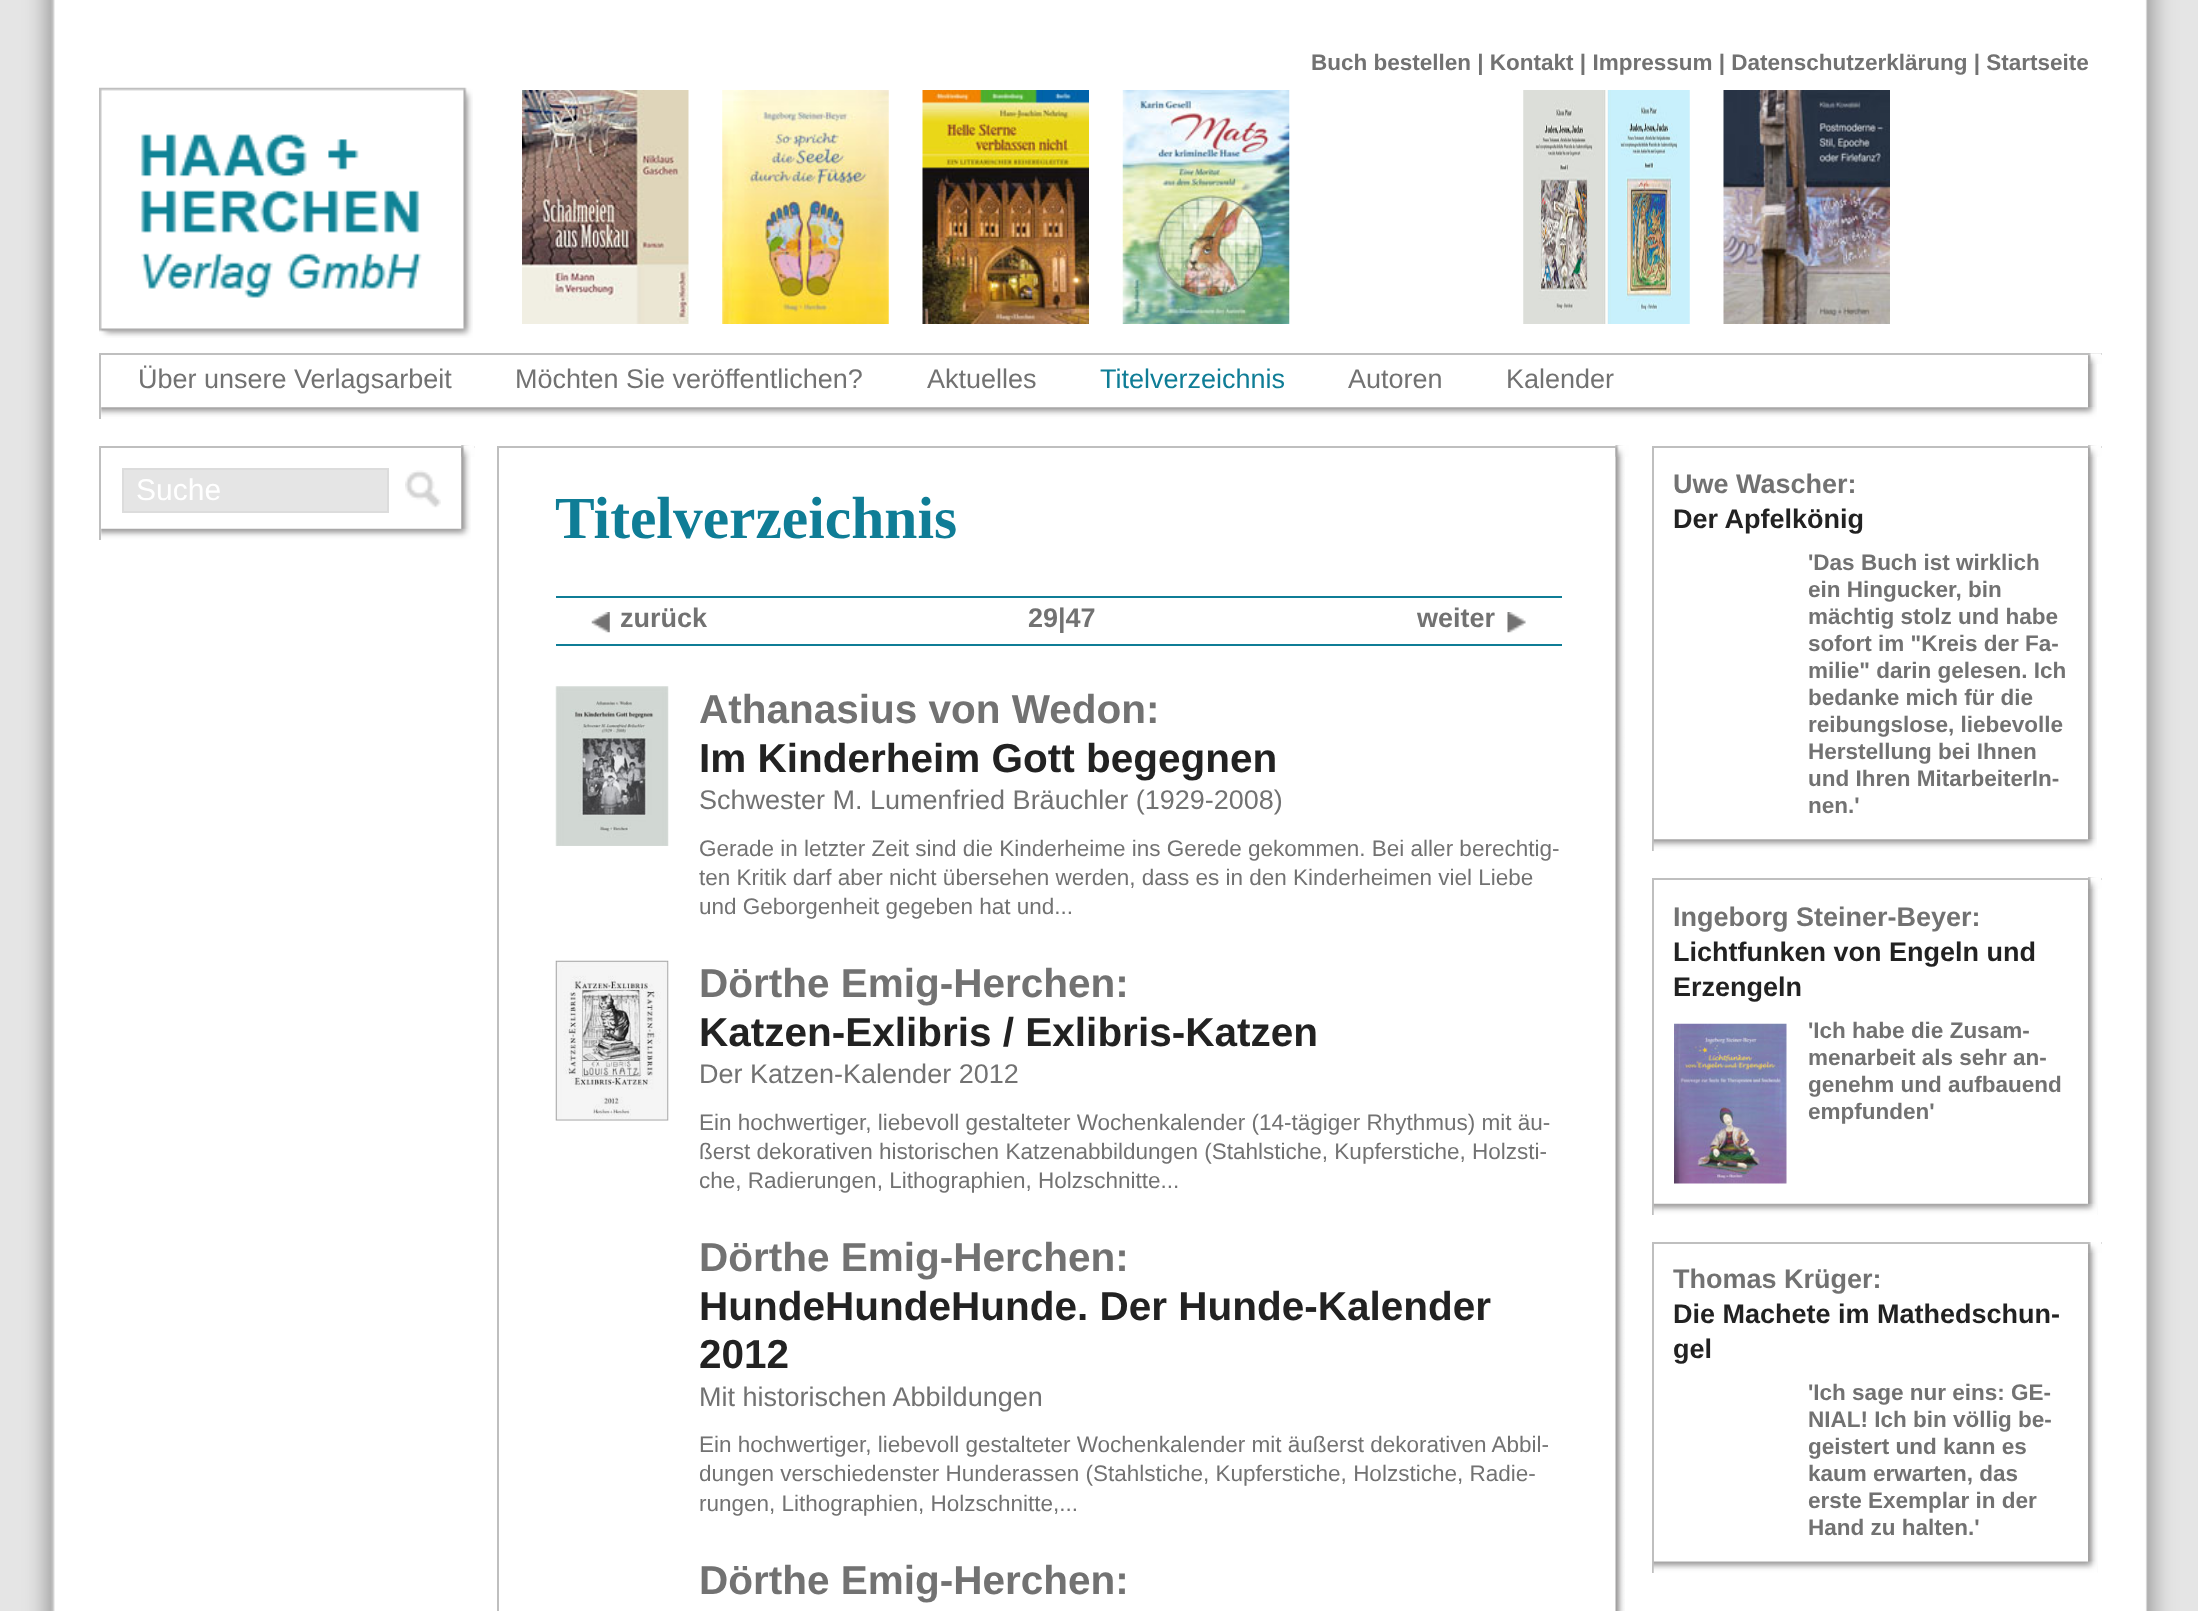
<!DOCTYPE html>
<meta charset="utf-8">
<style>body { margin: 0 } canvas { display: block }</style>
<canvas id="canvas" width="2198" height="1611"></canvas>
<script type="module">
  const canvas = document.getElementById("canvas");
  const ctx = canvas.getContext("2d");
  ctx.miterLimit = 4;
  ctx.fontKerning = "normal";
  async function loadImage(src) {
    const img = new Image();
    img.src = src;
    await img.decode();
    return img;
  }

  ctx.fillStyle = "#e5e5e5";
  ctx.fillRect(0, 0, 2198, 1611);
  ctx.drawImage(await loadImage("img1.png"), 20, 0, 2160, 1611);
  ctx.font = "bold 22.5px Liberation Sans";
  ctx.fillStyle = "#727272";
  ctx.fillText("Buch bestellen | Kontakt | Impressum | Datenschutzerklärung | Startseite", 1311, 70);
  ctx.drawImage(await loadImage("img2.png"), 99, 87, 374, 251);
  ctx.drawImage(await loadImage("img3.png"), 522, 90, 167, 234);
  ctx.drawImage(await loadImage("img4.png"), 722, 90, 167, 234);
  ctx.drawImage(await loadImage("img5.png"), 922, 90, 167, 234);
  ctx.drawImage(await loadImage("img6.png"), 1122, 90, 168, 234);
  ctx.drawImage(await loadImage("img7.png"), 1523, 90, 167, 234);
  ctx.drawImage(await loadImage("img8.png"), 1723, 90, 167, 234);
  ctx.drawImage(await loadImage("img9.png"), 2088, 364, 9, 44);
  ctx.fillStyle = "#bfbfbf";
  ctx.fillRect(99, 353, 2003, 2);
  ctx.fillRect(99, 353, 2, 66);
  ctx.drawImage(await loadImage("img10.png"), 2088, 353, 14, 11);
  ctx.font = "27px Liberation Sans";
  ctx.fillStyle = "#727272";
  ctx.fillText("Über unsere Verlagsarbeit", 138, 388);
  ctx.fillText("Möchten Sie veröffentlichen?", 515, 388);
  ctx.fillText("Aktuelles", 927, 388);
  ctx.fillStyle = "#0f7d96";
  ctx.fillText("Titelverzeichnis", 1100, 388);
  ctx.fillStyle = "#727272";
  ctx.fillText("Autoren", 1348, 388);
  ctx.fillText("Kalender", 1506, 388);
  ctx.drawImage(await loadImage("img11.png"), 101, 407, 1996, 12);
  ctx.drawImage(await loadImage("img12.png"), 461, 445, 10, 84);
  ctx.fillStyle = "#bfbfbf";
  ctx.fillRect(99, 446, 376, 2);
  ctx.fillRect(99, 446, 2, 94);
  ctx.drawImage(await loadImage("img13.png"), 461, 445, 14, 12);
  ctx.fillStyle = "#e5e5e5";
  ctx.beginPath();
  ctx.rect(123, 469, 265, 43);
  ctx.fill();
  ctx.strokeStyle = "#dcdcdc";
  ctx.lineWidth = 2;
  ctx.stroke();
  ctx.font = "30px Liberation Sans";
  ctx.fillStyle = "#ffffff";
  ctx.fillText("Suche", 136, 500);
  ctx.drawImage(await loadImage("img14.png"), 405, 470, 36, 38);
  ctx.drawImage(await loadImage("img15.png"), 101, 528, 370, 12);
  ctx.drawImage(await loadImage("img16.png"), 2088, 445, 9, 395);
  ctx.fillStyle = "#bfbfbf";
  ctx.fillRect(1652, 446, 450, 2);
  ctx.fillRect(1652, 446, 2, 405);
  ctx.drawImage(await loadImage("img17.png"), 2088, 445, 14, 12);
  ctx.font = "bold 27px Liberation Sans";
  ctx.fillStyle = "#727272";
  ctx.fillText("Uwe Wascher:", 1673, 493);
  ctx.fillStyle = "#222222";
  ctx.fillText("Der Apfelkönig", 1673, 528);
  ctx.font = "bold 22.5px Liberation Sans";
  ctx.fillStyle = "#727272";
  ctx.fillText("'Das Buch ist wirklich", 1808, 570);
  ctx.fillText("ein Hingucker, bin", 1808, 597);
  ctx.fillText("mächtig stolz und habe", 1808, 624);
  ctx.fillText("sofort im \"Kreis der Fa-", 1808, 651);
  ctx.fillText("milie\" darin gelesen. Ich", 1808, 678);
  ctx.fillText("bedanke mich für die", 1808, 705);
  ctx.fillText("reibungslose, liebevolle", 1808, 732);
  ctx.fillText("Herstellung bei Ihnen", 1808, 759);
  ctx.fillText("und Ihren MitarbeiterIn-", 1808, 786);
  ctx.fillText("nen.'", 1808, 813);
  ctx.drawImage(await loadImage("img18.png"), 1653, 839, 444, 12);
  ctx.drawImage(await loadImage("img19.png"), 2088, 877, 10, 338);
  ctx.fillStyle = "#bfbfbf";
  ctx.fillRect(1652, 878, 450, 2);
  ctx.fillRect(1652, 878, 2, 337);
  ctx.drawImage(await loadImage("img20.png"), 2088, 877, 14, 12);
  ctx.font = "bold 27px Liberation Sans";
  ctx.fillStyle = "#727272";
  ctx.fillText("Ingeborg Steiner-Beyer:", 1673, 926);
  ctx.fillStyle = "#222222";
  ctx.fillText("Lichtfunken von Engeln und", 1673, 961);
  ctx.fillText("Erzengeln", 1673, 996);
  ctx.drawImage(await loadImage("img21.png"), 1674, 1023, 113, 161);
  ctx.font = "bold 22.5px Liberation Sans";
  ctx.fillStyle = "#727272";
  ctx.fillText("'Ich habe die Zusam-", 1808, 1038);
  ctx.fillText("menarbeit als sehr an-", 1808, 1065);
  ctx.fillText("genehm und aufbauend", 1808, 1092);
  ctx.fillText("empfunden'", 1808, 1119);
  ctx.drawImage(await loadImage("img22.png"), 1653, 1203, 444, 12);
  ctx.drawImage(await loadImage("img23.png"), 2088, 1253, 10, 320);
  ctx.fillStyle = "#bfbfbf";
  ctx.fillRect(1652, 1242, 450, 2);
  ctx.fillRect(1652, 1242, 2, 331);
  ctx.drawImage(await loadImage("img24.png"), 2088, 1242, 14, 11);
  ctx.font = "bold 27px Liberation Sans";
  ctx.fillStyle = "#727272";
  ctx.fillText("Thomas Krüger:", 1673, 1288);
  ctx.fillStyle = "#222222";
  ctx.fillText("Die Machete im Mathedschun-", 1673, 1323);
  ctx.fillText("gel", 1673, 1358);
  ctx.font = "bold 22.5px Liberation Sans";
  ctx.fillStyle = "#727272";
  ctx.fillText("'Ich sage nur eins: GE-", 1808, 1400);
  ctx.fillText("NIAL! Ich bin völlig be-", 1808, 1427);
  ctx.fillText("geistert und kann es", 1808, 1454);
  ctx.fillText("kaum erwarten, das", 1808, 1481);
  ctx.fillText("erste Exemplar in der", 1808, 1508);
  ctx.fillText("Hand zu halten.'", 1808, 1535);
  ctx.drawImage(await loadImage("img25.png"), 1653, 1561, 444, 12);
  ctx.drawImage(await loadImage("img26.png"), 1615, 445, 10, 1166);
  ctx.fillStyle = "#bfbfbf";
  ctx.fillRect(497, 446, 1119, 2);
  ctx.fillRect(497, 446, 2, 1165);
  ctx.drawImage(await loadImage("img27.png"), 1615, 445, 14, 12);
  ctx.font = "bold 59.5px Liberation Serif";
  ctx.fillStyle = "#0f7d96";
  ctx.fillText("Titelverzeichnis", 555, 538);
  ctx.fillRect(556, 596, 1006, 2);
  ctx.fillRect(556, 644, 1006, 2);
  ctx.drawImage(await loadImage("img28.png"), 591, 612, 19, 21);
  ctx.font = "bold 27px Liberation Sans";
  ctx.fillStyle = "#727272";
  ctx.fillText("zurück", 620, 627);
  ctx.fillText("29|47", 1028, 627);
  ctx.fillText("weiter", 1417, 627);
  ctx.drawImage(await loadImage("img29.png"), 1507, 612, 19, 21);
  ctx.drawImage(await loadImage("img30.png"), 555, 686, 114, 160);
  ctx.font = "bold 40.5px Liberation Sans";
  ctx.fillText("Athanasius von Wedon:", 699, 723);
  ctx.fillStyle = "#222222";
  ctx.fillText("Im Kinderheim Gott begegnen", 699, 772);
  ctx.font = "27px Liberation Sans";
  ctx.fillStyle = "#727272";
  ctx.fillText("Schwester M. Lumenfried Bräuchler (1929-2008)", 699, 809);
  ctx.font = "22.5px Liberation Sans";
  ctx.fillText("Gerade in letzter Zeit sind die Kinderheime ins Gerede gekommen. Bei aller berechtig-", 699, 856);
  ctx.fillText("ten Kritik darf aber nicht übersehen werden, dass es in den Kinderheimen viel Liebe", 699, 885);
  ctx.fillText("und Geborgenheit gegeben hat und...", 699, 914);
  ctx.drawImage(await loadImage("img31.png"), 555, 960, 114, 161);
  ctx.font = "bold 40.5px Liberation Sans";
  ctx.fillText("Dörthe Emig-Herchen:", 699, 997);
  ctx.fillStyle = "#222222";
  ctx.fillText("Katzen-Exlibris / Exlibris-Katzen", 699, 1046);
  ctx.font = "27px Liberation Sans";
  ctx.fillStyle = "#727272";
  ctx.fillText("Der Katzen-Kalender 2012", 699, 1083);
  ctx.font = "22.5px Liberation Sans";
  ctx.fillText("Ein hochwertiger, liebevoll gestalteter Wochenkalender (14-tägiger Rhythmus) mit äu-", 699, 1130);
  ctx.fillText("ßerst dekorativen historischen Katzenabbildungen (Stahlstiche, Kupferstiche, Holzsti-", 699, 1159);
  ctx.fillText("che, Radierungen, Lithographien, Holzschnitte...", 699, 1188);
  ctx.font = "bold 40.5px Liberation Sans";
  ctx.fillText("Dörthe Emig-Herchen:", 699, 1271);
  ctx.fillStyle = "#222222";
  ctx.fillText("HundeHundeHunde. Der Hunde-Kalender", 699, 1320);
  ctx.fillText("2012", 699, 1368);
  ctx.font = "27px Liberation Sans";
  ctx.fillStyle = "#727272";
  ctx.fillText("Mit historischen Abbildungen", 699, 1406);
  ctx.font = "22.5px Liberation Sans";
  ctx.fillText("Ein hochwertiger, liebevoll gestalteter Wochenkalender mit äußerst dekorativen Abbil-", 699, 1452);
  ctx.fillText("dungen verschiedenster Hunderassen (Stahlstiche, Kupferstiche, Holzstiche, Radie-", 699, 1481);
  ctx.fillText("rungen, Lithographien, Holzschnitte,...", 699, 1511);
  ctx.font = "bold 40.5px Liberation Sans";
  ctx.fillText("Dörthe Emig-Herchen:", 699, 1594);
</script>
